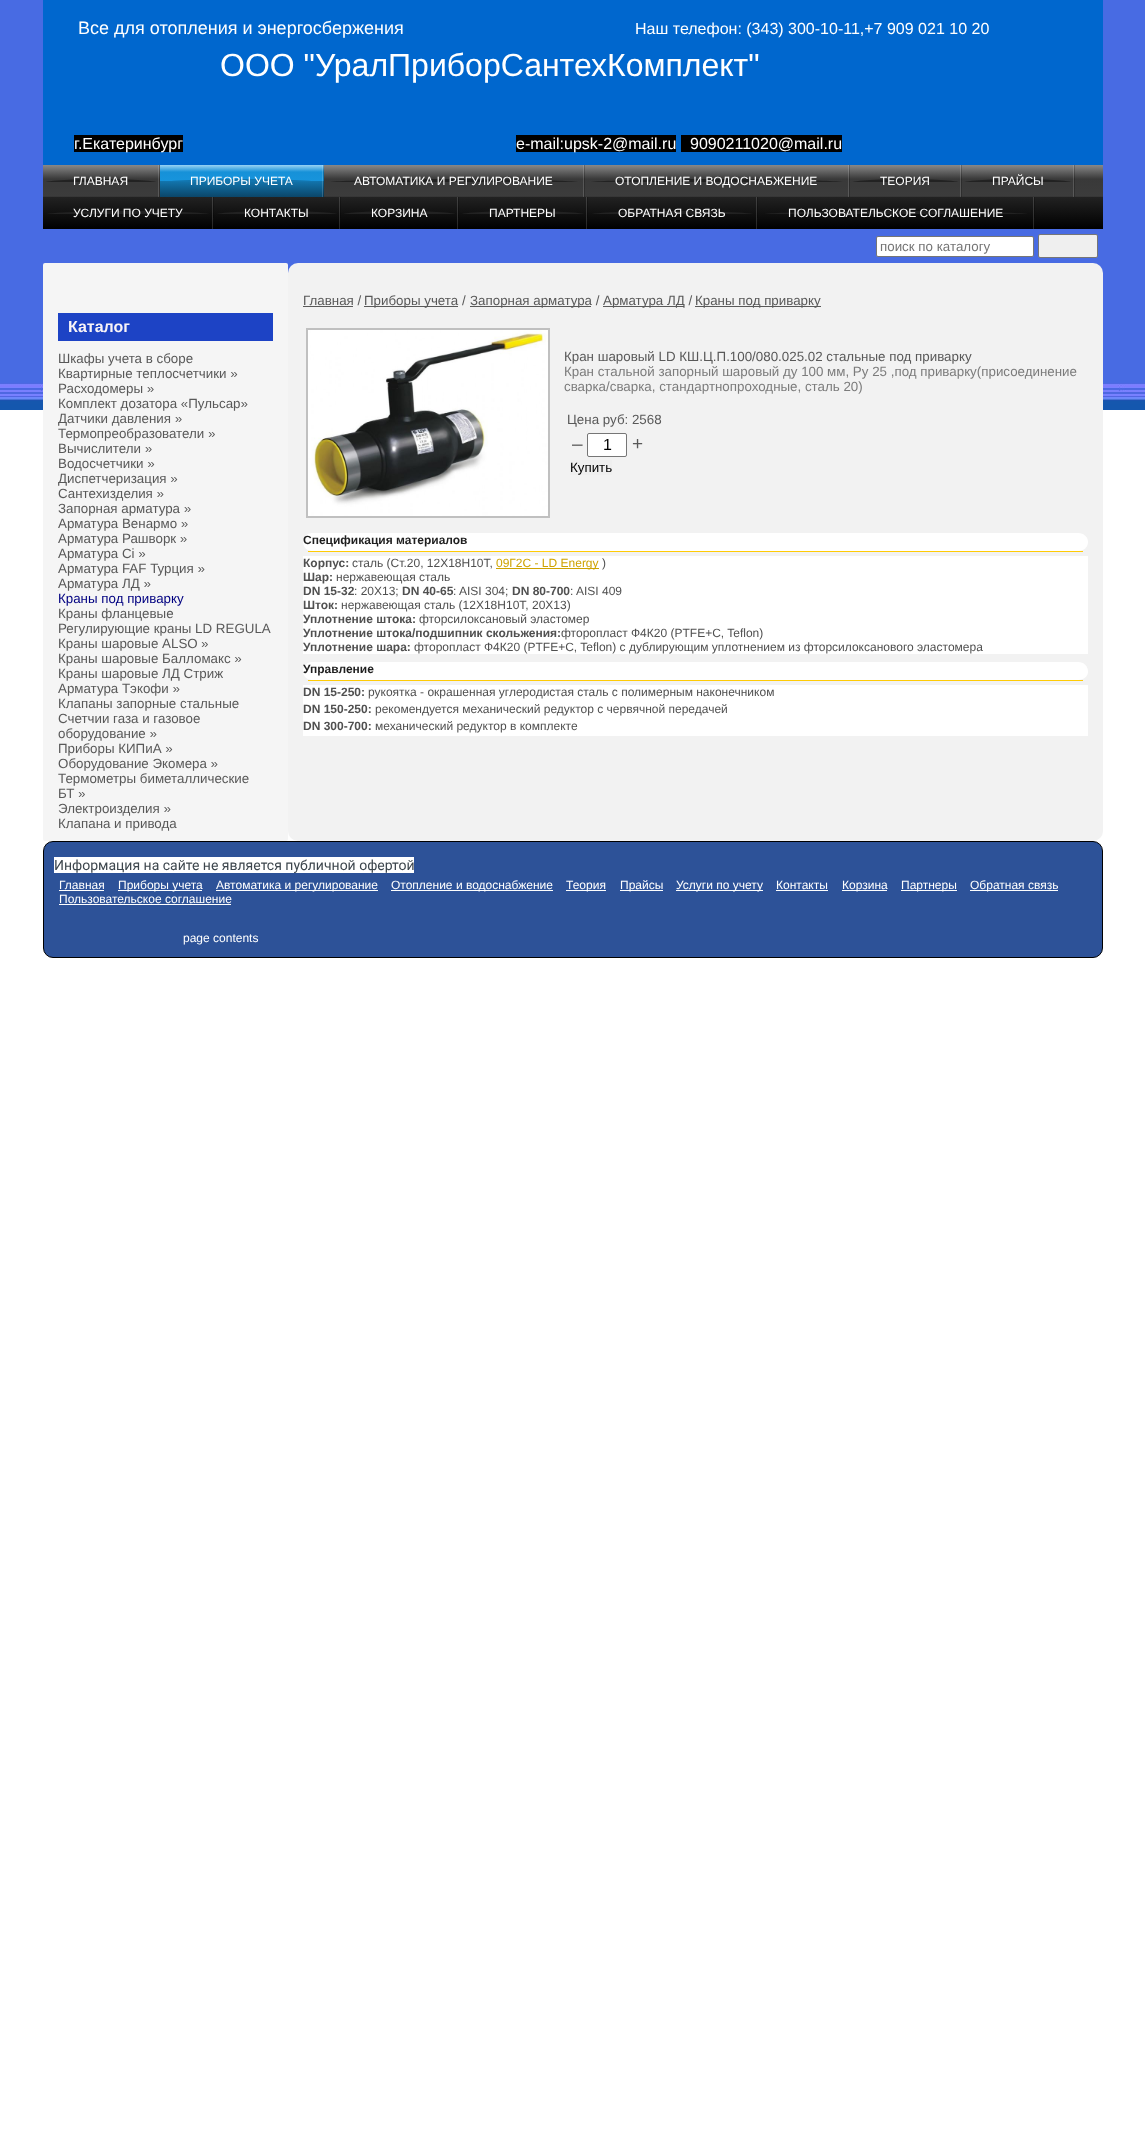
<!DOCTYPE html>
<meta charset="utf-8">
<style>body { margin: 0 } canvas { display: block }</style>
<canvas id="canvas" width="1145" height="2130"></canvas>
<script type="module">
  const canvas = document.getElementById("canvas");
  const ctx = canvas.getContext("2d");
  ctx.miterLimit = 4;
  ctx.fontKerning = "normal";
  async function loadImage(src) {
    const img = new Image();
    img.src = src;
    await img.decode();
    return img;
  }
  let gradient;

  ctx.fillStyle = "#ffffff";
  ctx.fillRect(0, 0, 1145, 2130);
  ctx.drawImage(await loadImage("img1.png"), 0, 0, 1145, 410);
  ctx.fillStyle = "#0067ce";
  ctx.fillRect(43, 0, 1060, 165);
  ctx.font = "18px Liberation Sans";
  ctx.fillStyle = "#ffffff";
  ctx.fillText("Все для отопления и энергосбержения", 78, 34);
  ctx.font = "16px Liberation Sans";
  ctx.fillText("Наш телефон: (343) 300-10-11,+7 909 021 10 20", 635, 34);
  ctx.font = "32px Liberation Sans";
  ctx.fillText("ООО \"УралПриборСантехКомплект\"", 220, 76);
  ctx.fillStyle = "#000000";
  ctx.fillRect(74, 135, 109, 17);
  ctx.font = "16px Liberation Sans";
  ctx.fillStyle = "#ffffff";
  ctx.fillText("г.Екатеринбург", 74, 149);
  ctx.fillStyle = "#000000";
  ctx.fillRect(516, 135, 160, 17);
  ctx.fillStyle = "#ffffff";
  ctx.fillText("e-mail:upsk-2@mail.ru", 516, 149);
  ctx.fillStyle = "#000000";
  ctx.fillRect(681, 135, 161, 17);
  ctx.fillStyle = "#ffffff";
  ctx.fillText("9090211020@mail.ru", 690, 149);
  gradient = ctx.createLinearGradient(573, 229, 573, 165);
  gradient.addColorStop(0, "#000000");
  gradient.addColorStop(0.5, "#222222");
  gradient.addColorStop(0.51, "#3c3c3c");
  gradient.addColorStop(0.78, "#393939");
  gradient.addColorStop(1, "#888888");
  ctx.fillStyle = gradient;
  ctx.fillRect(43, 165, 1060, 64);
  ctx.fillStyle = "rgba(0, 0, 0, 0.22)";
  ctx.fillRect(159, 165, 1, 32);
  gradient = ctx.createLinearGradient(101, 187, 101, 179);
  gradient.addColorStop(0, "#3a3a3a");
  gradient.addColorStop(0.6, "#3a3a3a");
  gradient.addColorStop(0.61, "#222222");
  gradient.addColorStop(1, "#222222");
  ctx.fillStyle = gradient;
  ctx.beginPath();
  ctx.moveTo(101, 179);
  ctx.bezierCurveTo(133, 179, 159, 181, 159, 183);
  ctx.lineTo(159, 187);
  ctx.lineTo(43, 187);
  ctx.lineTo(43, 183);
  ctx.bezierCurveTo(43, 181, 69, 179, 101, 179);
  ctx.closePath();
  ctx.fill();
  ctx.fillStyle = "rgba(255, 255, 255, 0.15)";
  ctx.fillRect(158, 165, 1, 32);
  ctx.font = "12px Liberation Sans";
  ctx.fillStyle = "#ffffff";
  ctx.fillText("ГЛАВНАЯ", 73, 185);
  gradient = ctx.createLinearGradient(242, 197, 242, 165);
  gradient.addColorStop(0, "#0b4669");
  gradient.addColorStop(0.5, "#1275ae");
  gradient.addColorStop(0.51, "#1794dc");
  gradient.addColorStop(0.78, "#1691d8");
  gradient.addColorStop(1, "#98d2f4");
  ctx.fillStyle = gradient;
  ctx.fillRect(160, 165, 164, 32);
  ctx.fillStyle = "rgba(0, 0, 0, 0.22)";
  ctx.fillRect(323, 165, 1, 32);
  gradient = ctx.createLinearGradient(242, 187, 242, 179);
  gradient.addColorStop(0, "rgba(0, 0, 0, 0)");
  gradient.addColorStop(0.6, "rgba(18, 117, 174, 0)");
  gradient.addColorStop(0.61, "#1275ae");
  gradient.addColorStop(1, "#1275ae");
  ctx.fillStyle = gradient;
  ctx.beginPath();
  ctx.moveTo(242, 179);
  ctx.bezierCurveTo(287, 179, 323, 181, 323, 183);
  ctx.lineTo(323, 187);
  ctx.lineTo(160, 187);
  ctx.lineTo(160, 183);
  ctx.bezierCurveTo(160, 181, 196, 179, 242, 179);
  ctx.closePath();
  ctx.fill();
  ctx.fillStyle = "rgba(255, 255, 255, 0.15)";
  ctx.fillRect(322, 165, 1, 32);
  ctx.fillStyle = "#ffffff";
  ctx.fillText("ПРИБОРЫ УЧЕТА", 190, 185);
  ctx.fillStyle = "rgba(0, 0, 0, 0.22)";
  ctx.fillRect(584, 165, 1, 32);
  gradient = ctx.createLinearGradient(454, 187, 454, 179);
  gradient.addColorStop(0, "#3a3a3a");
  gradient.addColorStop(0.6, "#3a3a3a");
  gradient.addColorStop(0.61, "#222222");
  gradient.addColorStop(1, "#222222");
  ctx.fillStyle = gradient;
  ctx.beginPath();
  ctx.moveTo(454, 179);
  ctx.bezierCurveTo(526, 179, 584, 181, 584, 183);
  ctx.lineTo(584, 187);
  ctx.lineTo(324, 187);
  ctx.lineTo(324, 183);
  ctx.bezierCurveTo(324, 181, 382, 179, 454, 179);
  ctx.closePath();
  ctx.fill();
  ctx.fillStyle = "rgba(255, 255, 255, 0.15)";
  ctx.fillRect(583, 165, 1, 32);
  ctx.fillStyle = "#ffffff";
  ctx.fillText("АВТОМАТИКА И РЕГУЛИРОВАНИЕ", 354, 185);
  ctx.fillStyle = "rgba(0, 0, 0, 0.22)";
  ctx.fillRect(849, 165, 1, 32);
  gradient = ctx.createLinearGradient(717, 187, 717, 179);
  gradient.addColorStop(0, "#3a3a3a");
  gradient.addColorStop(0.6, "#3a3a3a");
  gradient.addColorStop(0.61, "#222222");
  gradient.addColorStop(1, "#222222");
  ctx.fillStyle = gradient;
  ctx.beginPath();
  ctx.moveTo(717, 179);
  ctx.bezierCurveTo(790, 179, 849, 181, 849, 183);
  ctx.lineTo(849, 187);
  ctx.lineTo(585, 187);
  ctx.lineTo(585, 183);
  ctx.bezierCurveTo(585, 181, 644, 179, 717, 179);
  ctx.closePath();
  ctx.fill();
  ctx.fillStyle = "rgba(255, 255, 255, 0.15)";
  ctx.fillRect(848, 165, 1, 32);
  ctx.fillStyle = "#ffffff";
  ctx.fillText("ОТОПЛЕНИЕ И ВОДОСНАБЖЕНИЕ", 615, 185);
  ctx.fillStyle = "rgba(0, 0, 0, 0.22)";
  ctx.fillRect(961, 165, 1, 32);
  gradient = ctx.createLinearGradient(906, 187, 906, 179);
  gradient.addColorStop(0, "#3a3a3a");
  gradient.addColorStop(0.6, "#3a3a3a");
  gradient.addColorStop(0.61, "#222222");
  gradient.addColorStop(1, "#222222");
  ctx.fillStyle = gradient;
  ctx.beginPath();
  ctx.moveTo(906, 179);
  ctx.bezierCurveTo(936, 179, 961, 181, 961, 183);
  ctx.lineTo(961, 187);
  ctx.lineTo(850, 187);
  ctx.lineTo(850, 183);
  ctx.bezierCurveTo(850, 181, 875, 179, 906, 179);
  ctx.closePath();
  ctx.fill();
  ctx.fillStyle = "rgba(255, 255, 255, 0.15)";
  ctx.fillRect(960, 165, 1, 32);
  ctx.fillStyle = "#ffffff";
  ctx.fillText("ТЕОРИЯ", 880, 185);
  ctx.fillStyle = "rgba(0, 0, 0, 0.22)";
  ctx.fillRect(1074, 165, 1, 32);
  gradient = ctx.createLinearGradient(1018, 187, 1018, 179);
  gradient.addColorStop(0, "#3a3a3a");
  gradient.addColorStop(0.6, "#3a3a3a");
  gradient.addColorStop(0.61, "#222222");
  gradient.addColorStop(1, "#222222");
  ctx.fillStyle = gradient;
  ctx.beginPath();
  ctx.moveTo(1018, 179);
  ctx.bezierCurveTo(1049, 179, 1074, 181, 1074, 183);
  ctx.lineTo(1074, 187);
  ctx.lineTo(962, 187);
  ctx.lineTo(962, 183);
  ctx.bezierCurveTo(962, 181, 987, 179, 1018, 179);
  ctx.closePath();
  ctx.fill();
  ctx.fillStyle = "rgba(255, 255, 255, 0.15)";
  ctx.fillRect(1073, 165, 1, 32);
  ctx.fillStyle = "#ffffff";
  ctx.fillText("ПРАЙСЫ", 992, 185);
  ctx.fillStyle = "rgba(0, 0, 0, 0.22)";
  ctx.fillRect(213, 197, 1, 21);
  gradient = ctx.createLinearGradient(128, 219, 128, 211);
  gradient.addColorStop(0, "rgba(0, 0, 0, 0)");
  gradient.addColorStop(0.6, "rgba(34, 34, 34, 0)");
  gradient.addColorStop(0.61, "#222222");
  gradient.addColorStop(1, "#222222");
  ctx.fillStyle = gradient;
  ctx.beginPath();
  ctx.moveTo(128, 211);
  ctx.bezierCurveTo(175, 211, 213, 213, 213, 215);
  ctx.lineTo(213, 219);
  ctx.lineTo(43, 219);
  ctx.lineTo(43, 215);
  ctx.bezierCurveTo(43, 213, 81, 211, 128, 211);
  ctx.closePath();
  ctx.fill();
  ctx.fillStyle = "rgba(255, 255, 255, 0.15)";
  ctx.fillRect(212, 197, 1, 32);
  ctx.fillStyle = "#ffffff";
  ctx.fillText("УСЛУГИ ПО УЧЕТУ", 73, 217);
  ctx.fillStyle = "rgba(0, 0, 0, 0.22)";
  ctx.fillRect(340, 197, 1, 21);
  gradient = ctx.createLinearGradient(277, 219, 277, 211);
  gradient.addColorStop(0, "rgba(0, 0, 0, 0)");
  gradient.addColorStop(0.6, "rgba(34, 34, 34, 0)");
  gradient.addColorStop(0.61, "#222222");
  gradient.addColorStop(1, "#222222");
  ctx.fillStyle = gradient;
  ctx.beginPath();
  ctx.moveTo(277, 211);
  ctx.bezierCurveTo(312, 211, 340, 213, 340, 215);
  ctx.lineTo(340, 219);
  ctx.lineTo(214, 219);
  ctx.lineTo(214, 215);
  ctx.bezierCurveTo(214, 213, 242, 211, 277, 211);
  ctx.closePath();
  ctx.fill();
  ctx.fillStyle = "rgba(255, 255, 255, 0.15)";
  ctx.fillRect(339, 197, 1, 32);
  ctx.fillStyle = "#ffffff";
  ctx.fillText("КОНТАКТЫ", 244, 217);
  ctx.fillStyle = "rgba(0, 0, 0, 0.22)";
  ctx.fillRect(458, 197, 1, 21);
  gradient = ctx.createLinearGradient(400, 219, 400, 211);
  gradient.addColorStop(0, "rgba(0, 0, 0, 0)");
  gradient.addColorStop(0.6, "rgba(34, 34, 34, 0)");
  gradient.addColorStop(0.61, "#222222");
  gradient.addColorStop(1, "#222222");
  ctx.fillStyle = gradient;
  ctx.beginPath();
  ctx.moveTo(400, 211);
  ctx.bezierCurveTo(432, 211, 458, 213, 458, 215);
  ctx.lineTo(458, 219);
  ctx.lineTo(341, 219);
  ctx.lineTo(341, 215);
  ctx.bezierCurveTo(341, 213, 367, 211, 400, 211);
  ctx.closePath();
  ctx.fill();
  ctx.fillStyle = "rgba(255, 255, 255, 0.15)";
  ctx.fillRect(457, 197, 1, 32);
  ctx.fillStyle = "#ffffff";
  ctx.fillText("КОРЗИНА", 371, 217);
  ctx.fillStyle = "rgba(0, 0, 0, 0.22)";
  ctx.fillRect(587, 197, 1, 21);
  gradient = ctx.createLinearGradient(523, 219, 523, 211);
  gradient.addColorStop(0, "rgba(0, 0, 0, 0)");
  gradient.addColorStop(0.6, "rgba(34, 34, 34, 0)");
  gradient.addColorStop(0.61, "#222222");
  gradient.addColorStop(1, "#222222");
  ctx.fillStyle = gradient;
  ctx.beginPath();
  ctx.moveTo(523, 211);
  ctx.bezierCurveTo(558, 211, 587, 213, 587, 215);
  ctx.lineTo(587, 219);
  ctx.lineTo(459, 219);
  ctx.lineTo(459, 215);
  ctx.bezierCurveTo(459, 213, 488, 211, 523, 211);
  ctx.closePath();
  ctx.fill();
  ctx.fillStyle = "rgba(255, 255, 255, 0.15)";
  ctx.fillRect(586, 197, 1, 32);
  ctx.fillStyle = "#ffffff";
  ctx.fillText("ПАРТНЕРЫ", 489, 217);
  ctx.fillStyle = "rgba(0, 0, 0, 0.22)";
  ctx.fillRect(757, 197, 1, 21);
  gradient = ctx.createLinearGradient(673, 219, 673, 211);
  gradient.addColorStop(0, "rgba(0, 0, 0, 0)");
  gradient.addColorStop(0.6, "rgba(34, 34, 34, 0)");
  gradient.addColorStop(0.61, "#222222");
  gradient.addColorStop(1, "#222222");
  ctx.fillStyle = gradient;
  ctx.beginPath();
  ctx.moveTo(672, 211);
  ctx.bezierCurveTo(719, 211, 757, 213, 757, 215);
  ctx.lineTo(757, 219);
  ctx.lineTo(588, 219);
  ctx.lineTo(588, 215);
  ctx.bezierCurveTo(588, 213, 626, 211, 672, 211);
  ctx.closePath();
  ctx.fill();
  ctx.fillStyle = "rgba(255, 255, 255, 0.15)";
  ctx.fillRect(756, 197, 1, 32);
  ctx.fillStyle = "#ffffff";
  ctx.fillText("ОБРАТНАЯ СВЯЗЬ", 618, 217);
  ctx.fillStyle = "rgba(0, 0, 0, 0.22)";
  ctx.fillRect(1034, 197, 1, 21);
  gradient = ctx.createLinearGradient(896, 219, 896, 211);
  gradient.addColorStop(0, "rgba(0, 0, 0, 0)");
  gradient.addColorStop(0.6, "rgba(34, 34, 34, 0)");
  gradient.addColorStop(0.61, "#222222");
  gradient.addColorStop(1, "#222222");
  ctx.fillStyle = gradient;
  ctx.beginPath();
  ctx.moveTo(896, 211);
  ctx.bezierCurveTo(972, 211, 1034, 213, 1034, 215);
  ctx.lineTo(1034, 219);
  ctx.lineTo(758, 219);
  ctx.lineTo(758, 215);
  ctx.bezierCurveTo(758, 213, 820, 211, 896, 211);
  ctx.closePath();
  ctx.fill();
  ctx.fillStyle = "rgba(255, 255, 255, 0.15)";
  ctx.fillRect(1033, 197, 1, 32);
  ctx.fillStyle = "#ffffff";
  ctx.fillText("ПОЛЬЗОВАТЕЛЬСКОЕ СОГЛАШЕНИЕ", 788, 217);
  ctx.beginPath();
  ctx.roundRect(876.5, 236.5, 157, 20, 1.5);
  ctx.fill();
  ctx.strokeStyle = "#767676";
  ctx.stroke();
  ctx.font = "13.35px Liberation Sans";
  ctx.fillStyle = "#757575";
  ctx.fillText("поиск по каталогу", 880, 251);
  ctx.fillStyle = "#efefef";
  ctx.beginPath();
  ctx.roundRect(1038.5, 234.5, 59, 23, 1.5);
  ctx.fill();
  ctx.stroke();
  ctx.fillStyle = "#f5f5f5";
  ctx.beginPath();
  ctx.roundRect(43, 263, 245, 578, 2);
  ctx.fill();
  ctx.fillStyle = "#1d43c5";
  ctx.fillRect(58, 313, 215, 28);
  ctx.font = "bold 16px Liberation Sans";
  ctx.fillStyle = "#f8f3f7";
  ctx.fillText("Каталог", 68, 332);
  ctx.font = "13.35px Liberation Sans";
  ctx.fillStyle = "#595959";
  ctx.fillText("Шкафы учета в сборе", 58, 363);
  ctx.fillText("Квартирные теплосчетчики »", 58, 378);
  ctx.fillText("Расходомеры »", 58, 393);
  ctx.fillText("Комплект дозатора «Пульсар»", 58, 408);
  ctx.fillText("Датчики давления »", 58, 423);
  ctx.fillText("Термопреобразователи »", 58, 438);
  ctx.fillText("Вычислители »", 58, 453);
  ctx.fillText("Водосчетчики »", 58, 468);
  ctx.fillText("Диспетчеризация »", 58, 483);
  ctx.fillText("Сантехизделия »", 58, 498);
  ctx.fillText("Запорная арматура »", 58, 513);
  ctx.fillText("Арматура Венармо »", 58, 528);
  ctx.fillText("Арматура Рашворк »", 58, 543);
  ctx.fillText("Арматура Сi »", 58, 558);
  ctx.fillText("Арматура FAF Турция »", 58, 573);
  ctx.fillText("Арматура ЛД »", 58, 588);
  ctx.fillStyle = "#000080";
  ctx.fillText("Краны под приварку", 58, 603);
  ctx.fillStyle = "#595959";
  ctx.fillText("Краны фланцевые", 58, 618);
  ctx.fillText("Регулирующие краны LD REGULA", 58, 633);
  ctx.fillText("Краны шаровые ALSO", 58, 648);
  ctx.fillText("»", 201, 648);
  ctx.fillText("Краны шаровые Балломакс »", 58, 663);
  ctx.fillText("Краны шаровые ЛД Стриж", 58, 678);
  ctx.fillText("Арматура Тэкофи »", 58, 693);
  ctx.fillText("Клапаны запорные стальные", 58, 708);
  ctx.fillText("Счетчии газа и газовое", 58, 723);
  ctx.fillText("оборудование »", 58, 738);
  ctx.fillText("Приборы КИПиА »", 58, 753);
  ctx.fillText("Оборудование Экомера »", 58, 768);
  ctx.fillText("Термометры биметаллические", 58, 783);
  ctx.fillText("БТ »", 58, 798);
  ctx.fillText("Электроизделия »", 58, 813);
  ctx.fillText("Клапана и привода", 58, 828);
  ctx.fillStyle = "#f2f2f2";
  ctx.beginPath();
  ctx.roundRect(288, 263, 815, 578, 10);
  ctx.fill();
  ctx.fillStyle = "#595959";
  ctx.fillText("Главная /", 303, 305);
  ctx.fillRect(303, 306, 50, 1);
  ctx.fillRect(364, 306, 94, 1);
  ctx.fillText("Приборы учета /", 364, 305);
  ctx.fillRect(470, 306, 121, 1);
  ctx.fillText("Запорная арматура /", 470, 305);
  ctx.fillRect(603, 306, 81, 1);
  ctx.fillText("Арматура ЛД /", 603, 305);
  ctx.fillRect(695, 306, 126, 1);
  ctx.fillText("Краны под приварку", 695, 305);
  ctx.strokeStyle = "#c0c0c0";
  ctx.lineWidth = 2;
  ctx.strokeRect(307, 329, 242, 188);
  ctx.drawImage(await loadImage("img2.png"), 308, 330, 240, 186);
  ctx.fillText("Кран шаровый LD КШ.Ц.П.100/080.025.02 стальные под приварку", 564, 361);
  ctx.fillStyle = "#7c7c7c";
  ctx.fillText("Кран стальной запорный шаровый ду 100 мм, Ру 25 ,под приварку(присоединение", 564, 376);
  ctx.fillText("сварка/сварка, стандартнопроходные, сталь 20)", 564, 391);
  ctx.fillStyle = "#595959";
  ctx.fillText("Цена руб: 2568", 567, 424);
  ctx.font = "19px Liberation Sans";
  ctx.fillText("–", 572, 450);
  ctx.fillStyle = "#ffffff";
  ctx.beginPath();
  ctx.roundRect(587.5, 433.5, 39, 23, 1.5);
  ctx.fill();
  ctx.strokeStyle = "#767676";
  ctx.lineWidth = 1;
  ctx.stroke();
  ctx.font = "16px Liberation Sans";
  ctx.fillStyle = "#000000";
  ctx.fillText("1", 603, 450);
  ctx.font = "19px Liberation Sans";
  ctx.fillStyle = "#595959";
  ctx.fillText("+", 632, 450);
  ctx.fillStyle = "#efefef";
  ctx.fillRect(570, 460, 42, 15);
  ctx.font = "13.35px Liberation Sans";
  ctx.fillStyle = "#000000";
  ctx.fillText("Купить", 570, 472);
  ctx.fillStyle = "#ffffff";
  ctx.beginPath();
  ctx.moveTo(312, 533);
  ctx.lineTo(1078, 533);
  ctx.bezierCurveTo(1084, 533, 1088, 537, 1088, 542);
  ctx.bezierCurveTo(1088, 547, 1084, 551, 1078, 551);
  ctx.lineTo(312, 551);
  ctx.bezierCurveTo(307, 551, 303, 547, 303, 542);
  ctx.bezierCurveTo(303, 537, 307, 533, 312, 533);
  ctx.closePath();
  ctx.fill();
  ctx.fillStyle = "#ffcb05";
  ctx.fillRect(308, 551, 775, 1);
  ctx.font = "bold 12px Liberation Sans";
  ctx.fillStyle = "#1f1f1f";
  ctx.fillText("Спецификация материалов", 303, 544);
  ctx.fillStyle = "#ffffff";
  ctx.fillRect(303, 556, 785, 98);
  ctx.fillStyle = "#505050";
  ctx.fillText("Корпус:", 303, 567);
  ctx.font = "12px Liberation Sans";
  ctx.fillText("сталь (Ст.20, 12Х18Н10Т,", 352, 567);
  ctx.fillStyle = "#cea300";
  ctx.fillRect(496, 568, 103, 1);
  ctx.fillText("09Г2С - LD Energy", 496, 567);
  ctx.fillStyle = "#505050";
  ctx.fillText(")", 602, 567);
  ctx.font = "bold 12px Liberation Sans";
  ctx.fillText("Шар:", 303, 581);
  ctx.font = "12px Liberation Sans";
  ctx.fillText("нержавеющая сталь", 336, 581);
  ctx.font = "bold 12px Liberation Sans";
  ctx.fillText("DN 15-32", 303, 595);
  ctx.font = "12px Liberation Sans";
  ctx.fillText(": 20X13;", 354, 595);
  ctx.font = "bold 12px Liberation Sans";
  ctx.fillText("DN 40-65", 402, 595);
  ctx.font = "12px Liberation Sans";
  ctx.fillText(": AISI 304;", 453, 595);
  ctx.font = "bold 12px Liberation Sans";
  ctx.fillText("DN 80-700", 512, 595);
  ctx.font = "12px Liberation Sans";
  ctx.fillText(": AISI 409", 570, 595);
  ctx.font = "bold 12px Liberation Sans";
  ctx.fillText("Шток:", 303, 609);
  ctx.font = "12px Liberation Sans";
  ctx.fillText("нержавеющая сталь (12Х18Н10Т, 20Х13)", 341, 609);
  ctx.font = "bold 12px Liberation Sans";
  ctx.fillText("Уплотнение штока:", 303, 623);
  ctx.font = "12px Liberation Sans";
  ctx.fillText("фторсилоксановый эластомер", 419, 623);
  ctx.font = "bold 12px Liberation Sans";
  ctx.fillText("Уплотнение штока/подшипник скольжения:", 303, 637);
  ctx.font = "12px Liberation Sans";
  ctx.fillText("фторопласт Ф4К20 (PTFE+C, Teflon)", 561, 637);
  ctx.font = "bold 12px Liberation Sans";
  ctx.fillText("Уплотнение шара:", 303, 651);
  ctx.font = "12px Liberation Sans";
  ctx.fillText("фторопласт Ф4К20 (PTFE+C, Teflon) с дублирующим уплотнением из фторсилоксанового эластомера", 414, 651);
  ctx.fillStyle = "#ffffff";
  ctx.beginPath();
  ctx.moveTo(312, 662);
  ctx.lineTo(1078, 662);
  ctx.bezierCurveTo(1084, 662, 1088, 666, 1088, 672);
  ctx.bezierCurveTo(1088, 676, 1084, 680, 1078, 680);
  ctx.lineTo(312, 680);
  ctx.bezierCurveTo(307, 680, 303, 676, 303, 672);
  ctx.bezierCurveTo(303, 666, 307, 662, 312, 662);
  ctx.closePath();
  ctx.fill();
  ctx.fillStyle = "#ffcb05";
  ctx.fillRect(308, 680, 775, 1);
  ctx.font = "bold 12px Liberation Sans";
  ctx.fillStyle = "#1f1f1f";
  ctx.fillText("Управление", 303, 673);
  ctx.fillStyle = "#ffffff";
  ctx.fillRect(303, 685, 785, 51);
  ctx.fillStyle = "#505050";
  ctx.fillText("DN 15-250:", 303, 696);
  ctx.font = "12px Liberation Sans";
  ctx.fillText("рукоятка - окрашенная углеродистая сталь с полимерным наконечником", 368, 696);
  ctx.font = "bold 12px Liberation Sans";
  ctx.fillText("DN 150-250:", 303, 713);
  ctx.font = "12px Liberation Sans";
  ctx.fillText("рекомендуется механический редуктор с червячной передачей", 375, 713);
  ctx.font = "bold 12px Liberation Sans";
  ctx.fillText("DN 300-700:", 303, 730);
  ctx.font = "12px Liberation Sans";
  ctx.fillText("механический редуктор в комплекте", 375, 730);
  ctx.fillStyle = "#2d5298";
  ctx.beginPath();
  ctx.roundRect(43.5, 841.5, 1059, 116, 9.5);
  ctx.fill();
  ctx.strokeStyle = "#000000";
  ctx.stroke();
  ctx.fillStyle = "#ffffff";
  ctx.fillRect(54, 857, 360, 16);
  ctx.font = "14px Roboto";
  ctx.fillStyle = "#3d464d";
  ctx.fillText("Информация на сайте не является публичной офертой", 54, 870);
  ctx.font = "12px Liberation Sans";
  ctx.fillStyle = "#ffffff";
  ctx.fillText("Главная", 59, 889);
  ctx.fillRect(59, 890, 45, 1);
  ctx.fillRect(118, 890, 84, 1);
  ctx.fillText("Приборы учета", 118, 889);
  ctx.fillRect(216, 890, 162, 1);
  ctx.fillText("Автоматика и регулирование", 216, 889);
  ctx.fillRect(391, 890, 162, 1);
  ctx.fillText("Отопление и водоснабжение", 391, 889);
  ctx.fillRect(566, 890, 40, 1);
  ctx.fillText("Теория", 566, 889);
  ctx.fillRect(620, 890, 43, 1);
  ctx.fillText("Прайсы", 620, 889);
  ctx.fillRect(676, 890, 87, 1);
  ctx.fillText("Услуги по учету", 676, 889);
  ctx.fillText("Контакты", 776, 889);
  ctx.fillRect(776, 890, 52, 1);
  ctx.fillRect(842, 890, 45, 1);
  ctx.fillText("Корзина", 842, 889);
  ctx.fillRect(901, 890, 56, 1);
  ctx.fillText("Партнеры", 901, 889);
  ctx.fillRect(970, 890, 88, 1);
  ctx.fillText("Обратная связь", 970, 889);
  ctx.fillText("Пользовательское соглашение", 59, 903);
  ctx.fillRect(59, 904, 172, 1);
  ctx.fillText("page contents", 183, 942);
</script>
